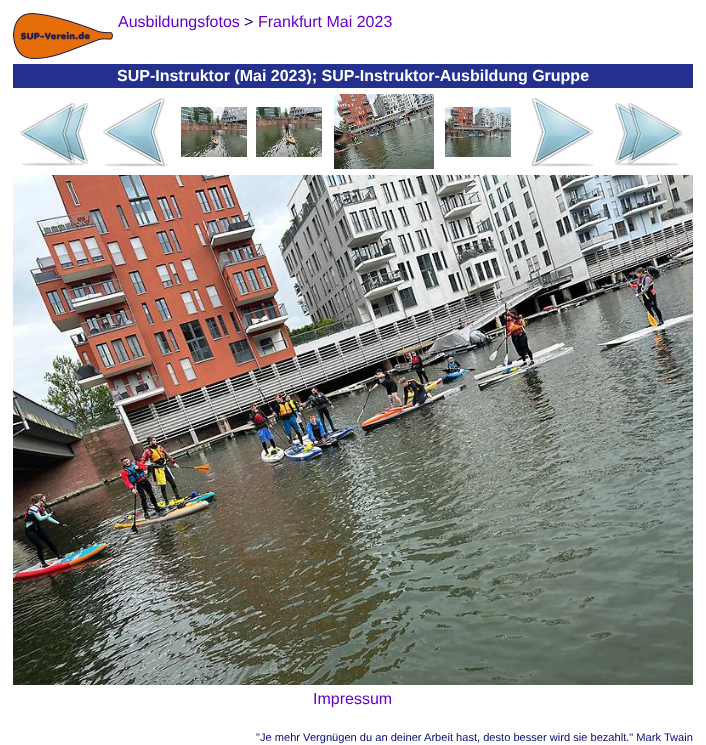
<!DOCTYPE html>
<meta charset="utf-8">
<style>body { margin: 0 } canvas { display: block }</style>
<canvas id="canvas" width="706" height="745"></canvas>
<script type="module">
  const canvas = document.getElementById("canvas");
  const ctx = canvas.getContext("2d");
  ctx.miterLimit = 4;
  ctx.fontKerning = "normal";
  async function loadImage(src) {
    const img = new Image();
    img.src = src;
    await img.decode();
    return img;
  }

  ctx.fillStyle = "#ffffff";
  ctx.fillRect(0, 0, 706, 745);
  ctx.drawImage(await loadImage("img1.png"), 13, 13, 100, 46);
  ctx.font = "16px Liberation Sans";
  ctx.fillStyle = "#6600cc";
  ctx.fillText("Ausbildungsfotos", 118, 27);
  ctx.fillStyle = "#080875";
  ctx.fillText(">", 244, 27);
  ctx.fillStyle = "#6600cc";
  ctx.fillText("Frankfurt Mai 2023", 258, 27);
  ctx.fillStyle = "#23308e";
  ctx.fillRect(13, 64, 680, 24);
  ctx.font = "bold 16px Liberation Sans";
  ctx.fillStyle = "#ffffff";
  ctx.fillText("SUP-Instruktor (Mai 2023); SUP-Instruktor-Ausbildung Gruppe", 117, 81);
  ctx.drawImage(await loadImage("img2.png"), 20, 103, 69, 63);
  ctx.drawImage(await loadImage("img3.png"), 103, 98, 65, 69);
  ctx.drawImage(await loadImage("img4.png"), 181, 107, 66, 50);
  ctx.drawImage(await loadImage("img5.png"), 256, 107, 66, 50);
  ctx.drawImage(await loadImage("img6.png"), 334, 94, 100, 75);
  ctx.drawImage(await loadImage("img7.png"), 445, 107, 66, 50);
  ctx.drawImage(await loadImage("img8.png"), 531, 98, 63, 69);
  ctx.drawImage(await loadImage("img9.png"), 614, 103, 69, 63);
  ctx.drawImage(await loadImage("img10.png"), 13, 175, 680, 510);
  ctx.font = "16px Liberation Sans";
  ctx.fillStyle = "#6600cc";
  ctx.fillText("Impressum", 313, 704);
  ctx.font = "11.1px Liberation Sans";
  ctx.fillStyle = "#080875";
  ctx.fillText("\"Je mehr Vergnügen du an deiner Arbeit hast, desto besser wird sie bezahlt.\" Mark Twain", 256, 741);
</script>
